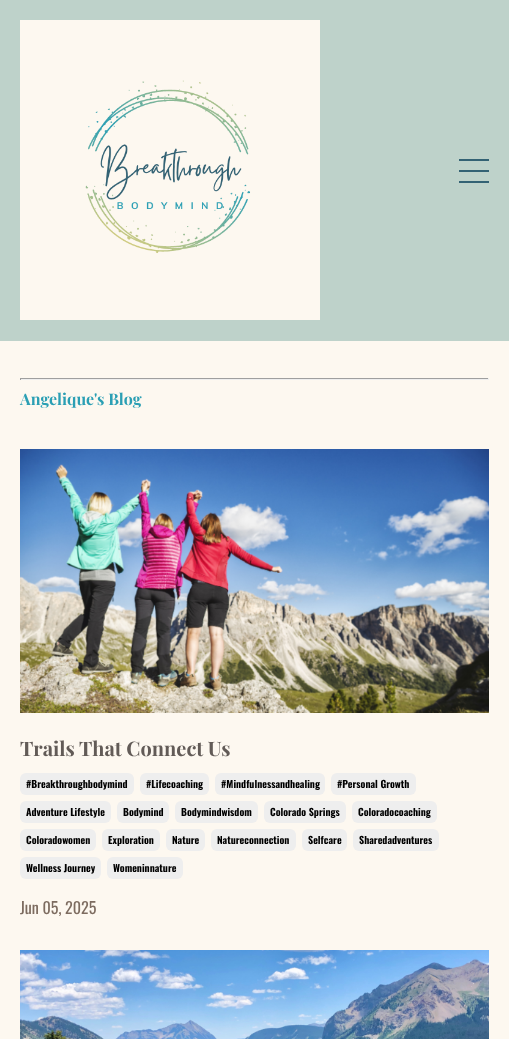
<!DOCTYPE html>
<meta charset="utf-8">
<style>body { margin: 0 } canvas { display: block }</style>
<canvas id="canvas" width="509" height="1039"></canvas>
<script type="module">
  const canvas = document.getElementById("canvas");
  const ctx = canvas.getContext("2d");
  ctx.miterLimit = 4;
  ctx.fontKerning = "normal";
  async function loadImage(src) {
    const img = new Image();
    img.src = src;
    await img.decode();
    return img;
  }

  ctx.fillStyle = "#bed2ca";
  ctx.fillRect(0, 0, 509, 1039);
  ctx.drawImage(await loadImage("img1.png"), 20, 20, 300, 300);
  ctx.fillStyle = "#336274";
  ctx.fillRect(459, 159, 30, 2);
  ctx.fillRect(459, 170, 30, 2);
  ctx.fillRect(459, 181, 30, 2);
  ctx.fillStyle = "#fdf8f0";
  ctx.fillRect(0, 341, 509, 698);
  ctx.fillStyle = "#9f9f9f";
  ctx.fillRect(20, 378, 469, 1);
  ctx.fillStyle = "#eeeeee";
  ctx.fillRect(488, 378, 1, 2);
  ctx.fillRect(20, 379, 469, 1);
  ctx.fillStyle = "#9f9f9f";
  ctx.fillRect(20, 378, 1, 2);
  ctx.font = "bold 16px Playfair Display";
  ctx.fillStyle = "#2b9fb4";
  ctx.fillText("Angelique's Blog", 20, 405);
  ctx.drawImage(await loadImage("img2.png"), 20, 449, 469, 264);
  ctx.font = "bold 20px Playfair Display";
  ctx.fillStyle = "#625b57";
  ctx.fillText("Trails That Connect Us", 20, 756);
  ctx.fillStyle = "#eeeeee";
  ctx.beginPath();
  ctx.roundRect(20, 773, 114, 22, 6);
  ctx.fill();
  ctx.font = "bold 10px Oswald";
  ctx.fillStyle = "#000000";
  ctx.fillText("#Breakthroughbodymind", 26, 788);
  ctx.fillStyle = "#eeeeee";
  ctx.beginPath();
  ctx.roundRect(140, 773, 69, 22, 6);
  ctx.fill();
  ctx.fillStyle = "#000000";
  ctx.fillText("#Lifecoaching", 146, 788);
  ctx.fillStyle = "#eeeeee";
  ctx.beginPath();
  ctx.roundRect(215, 773, 110, 22, 6);
  ctx.fill();
  ctx.fillStyle = "#000000";
  ctx.fillText("#Mindfulnessandhealing", 221, 788);
  ctx.fillStyle = "#eeeeee";
  ctx.beginPath();
  ctx.roundRect(331, 773, 85, 22, 6);
  ctx.fill();
  ctx.fillStyle = "#000000";
  ctx.fillText("#Personal Growth", 337, 788);
  ctx.fillStyle = "#eeeeee";
  ctx.beginPath();
  ctx.roundRect(20, 801, 91, 22, 6);
  ctx.fill();
  ctx.fillStyle = "#000000";
  ctx.fillText("Adventure Lifestyle", 26, 816);
  ctx.fillStyle = "#eeeeee";
  ctx.beginPath();
  ctx.roundRect(117, 801, 52, 22, 6);
  ctx.fill();
  ctx.fillStyle = "#000000";
  ctx.fillText("Bodymind", 123, 816);
  ctx.fillStyle = "#eeeeee";
  ctx.beginPath();
  ctx.roundRect(175, 801, 83, 22, 6);
  ctx.fill();
  ctx.fillStyle = "#000000";
  ctx.fillText("Bodymindwisdom", 181, 816);
  ctx.fillStyle = "#eeeeee";
  ctx.beginPath();
  ctx.roundRect(264, 801, 82, 22, 6);
  ctx.fill();
  ctx.fillStyle = "#000000";
  ctx.fillText("Colorado Springs", 270, 816);
  ctx.fillStyle = "#eeeeee";
  ctx.beginPath();
  ctx.roundRect(352, 801, 85, 22, 6);
  ctx.fill();
  ctx.fillStyle = "#000000";
  ctx.fillText("Coloradocoaching", 358, 816);
  ctx.fillStyle = "#eeeeee";
  ctx.beginPath();
  ctx.roundRect(20, 829, 76, 22, 6);
  ctx.fill();
  ctx.fillStyle = "#000000";
  ctx.fillText("Coloradowomen", 26, 844);
  ctx.fillStyle = "#eeeeee";
  ctx.beginPath();
  ctx.roundRect(102, 829, 58, 22, 6);
  ctx.fill();
  ctx.fillStyle = "#000000";
  ctx.fillText("Exploration", 108, 844);
  ctx.fillStyle = "#eeeeee";
  ctx.beginPath();
  ctx.roundRect(166, 829, 39, 22, 6);
  ctx.fill();
  ctx.fillStyle = "#000000";
  ctx.fillText("Nature", 172, 844);
  ctx.fillStyle = "#eeeeee";
  ctx.beginPath();
  ctx.roundRect(211, 829, 85, 22, 6);
  ctx.fill();
  ctx.fillStyle = "#000000";
  ctx.fillText("Natureconnection", 217, 844);
  ctx.fillStyle = "#eeeeee";
  ctx.beginPath();
  ctx.roundRect(302, 829, 45, 22, 6);
  ctx.fill();
  ctx.fillStyle = "#000000";
  ctx.fillText("Selfcare", 308, 844);
  ctx.fillStyle = "#eeeeee";
  ctx.beginPath();
  ctx.roundRect(353, 829, 86, 22, 6);
  ctx.fill();
  ctx.fillStyle = "#000000";
  ctx.fillText("Sharedadventures", 359, 844);
  ctx.fillStyle = "#eeeeee";
  ctx.beginPath();
  ctx.roundRect(20, 857, 81, 22, 6);
  ctx.fill();
  ctx.fillStyle = "#000000";
  ctx.fillText("Wellness Journey", 26, 872);
  ctx.fillStyle = "#eeeeee";
  ctx.beginPath();
  ctx.roundRect(107, 857, 76, 22, 6);
  ctx.fill();
  ctx.fillStyle = "#000000";
  ctx.fillText("Womeninnature", 113, 872);
  ctx.font = "16px Oswald";
  ctx.fillStyle = "#7d6c60";
  ctx.fillText("Jun 05, 2025", 20, 914);
  ctx.drawImage(await loadImage("img3.png"), 20, 950, 469, 89);
</script>
